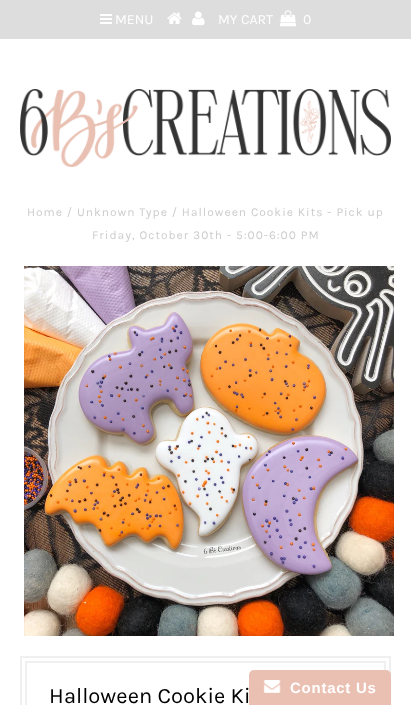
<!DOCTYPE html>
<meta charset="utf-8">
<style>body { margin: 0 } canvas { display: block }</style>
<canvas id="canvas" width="411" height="705"></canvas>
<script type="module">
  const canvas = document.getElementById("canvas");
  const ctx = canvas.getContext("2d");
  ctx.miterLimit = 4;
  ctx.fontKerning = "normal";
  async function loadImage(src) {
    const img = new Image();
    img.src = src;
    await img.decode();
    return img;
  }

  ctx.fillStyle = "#ffffff";
  ctx.fillRect(0, 0, 411, 705);
  ctx.fillStyle = "#dddddd";
  ctx.fillRect(0, 0, 411, 39);
  ctx.drawImage(await loadImage("img1.png"), 100, 14, 12, 10);
  ctx.font = "14px Karla";
  ctx.fillStyle = "#ffffff";
  ctx.fillText("MENU", 115, 24);
  ctx.drawImage(await loadImage("img2.png"), 167, 12, 15, 12);
  ctx.drawImage(await loadImage("img3.png"), 192, 11, 13, 15);
  ctx.fillText("MY CART", 218, 24);
  ctx.drawImage(await loadImage("img4.png"), 280, 10, 16, 17);
  ctx.fillText("0", 303, 24);
  ctx.drawImage(await loadImage("img5.png"), 20, 89, 371, 78);
  ctx.letterSpacing = "1px";
  ctx.font = "12px Karla";
  ctx.fillStyle = "#cccccc";
  ctx.fillText("Home / Unknown Type / Halloween Cookie Kits - Pick up", 27, 216);
  ctx.fillText("Friday, October 30th - 5:00-6:00 PM", 92, 239);
  ctx.drawImage(await loadImage("img6.png"), 24, 266, 370, 370);
  ctx.strokeStyle = "#f0f0f0";
  ctx.lineWidth = 2;
  ctx.strokeRect(21, 657, 369, 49);
  ctx.strokeRect(26, 662, 359, 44);
  ctx.letterSpacing = "0px";
  ctx.font = "22px Karla";
  ctx.fillStyle = "#000000";
  ctx.fillText("Halloween Cookie Ki", 49, 703);
  ctx.fillStyle = "#eac0b3";
  ctx.beginPath();
  ctx.roundRect(249, 670, 142, 35, [5, 5, 0, 0]);
  ctx.fill();
  ctx.drawImage(await loadImage("img7.png"), 263, 680, 18, 13);
  ctx.letterSpacing = "0.75px";
  ctx.font = "bold 15px Liberation Sans";
  ctx.fillStyle = "#ffffff";
  ctx.fillText("Contact Us", 290, 693);
</script>
